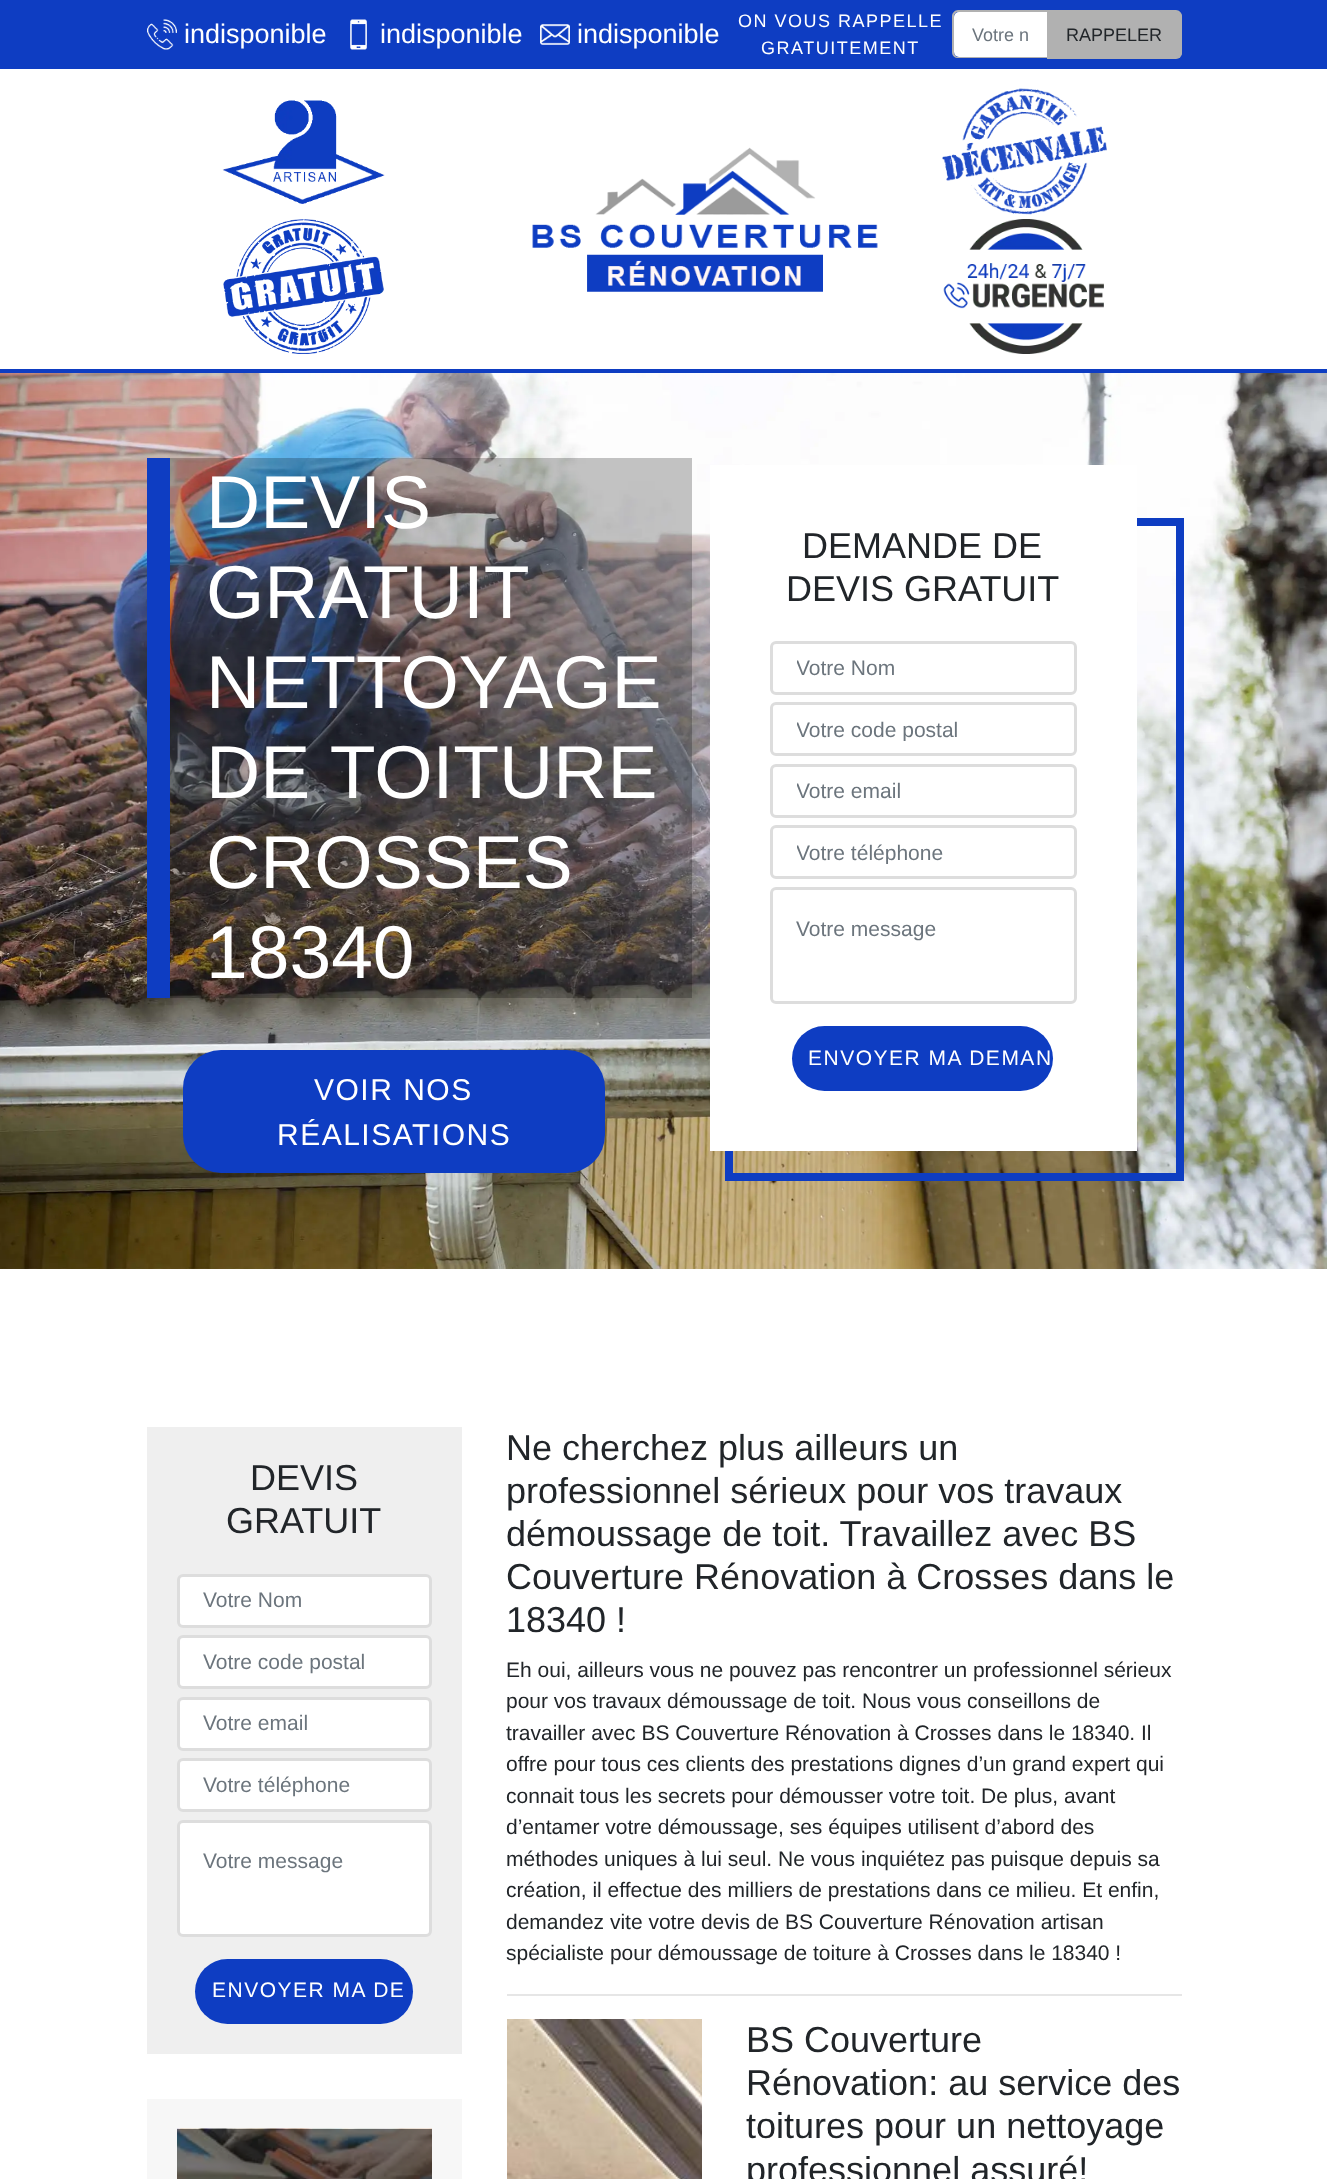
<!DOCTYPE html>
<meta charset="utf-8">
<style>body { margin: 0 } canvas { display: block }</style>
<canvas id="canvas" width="1327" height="2179"></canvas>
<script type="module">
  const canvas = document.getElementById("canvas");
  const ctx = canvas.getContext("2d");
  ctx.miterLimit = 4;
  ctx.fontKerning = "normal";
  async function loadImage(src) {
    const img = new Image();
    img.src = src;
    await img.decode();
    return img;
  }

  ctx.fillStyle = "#ffffff";
  ctx.fillRect(0, 0, 1327, 2179);
  ctx.fillStyle = "#0e3dc2";
  ctx.fillRect(0, 0, 1327, 69);
  ctx.drawImage(await loadImage("img1.png"), 147, 19, 30, 31);
  ctx.font = "27px Liberation Sans";
  ctx.fillStyle = "#ffffff";
  ctx.fillText("indisponible", 184, 43);
  ctx.drawImage(await loadImage("img2.png"), 350, 19, 17, 31);
  ctx.fillText("indisponible", 380, 43);
  ctx.drawImage(await loadImage("img3.png"), 540, 24, 30, 21);
  ctx.fillText("indisponible", 577, 43);
  ctx.letterSpacing = "1.5px";
  ctx.font = "18px Liberation Sans";
  ctx.fillText("ON VOUS RAPPELLE", 738, 27);
  ctx.fillText("GRATUITEMENT", 761, 54);
  ctx.beginPath();
  ctx.roundRect(954, 12, 93, 45, [5, 0, 0, 5]);
  ctx.fill();
  ctx.fillStyle = "#b1b1b1";
  ctx.beginPath();
  ctx.moveTo(958, 10);
  ctx.lineTo(1047, 10);
  ctx.lineTo(1047, 58);
  ctx.lineTo(958, 58);
  ctx.bezierCurveTo(955, 58, 952, 56, 952, 52);
  ctx.lineTo(952, 16);
  ctx.bezierCurveTo(952, 13, 955, 10, 958, 10);
  ctx.closePath();
  ctx.moveTo(958, 12);
  ctx.lineTo(1047, 12);
  ctx.lineTo(1047, 57);
  ctx.lineTo(958, 57);
  ctx.bezierCurveTo(956, 57, 954, 55, 954, 52);
  ctx.lineTo(954, 16);
  ctx.bezierCurveTo(954, 14, 956, 12, 958, 12);
  ctx.closePath();
  ctx.fill("evenodd");
  ctx.letterSpacing = "0px";
  ctx.fillStyle = "#6c757d";
  ctx.fillText("Votre n", 972, 41);
  ctx.fillStyle = "#b1b1b1";
  ctx.beginPath();
  ctx.roundRect(1047, 11, 135, 48, [0, 6, 6, 0]);
  ctx.fill();
  ctx.beginPath();
  ctx.moveTo(1047, 10);
  ctx.lineTo(1176, 10);
  ctx.bezierCurveTo(1179, 10, 1182, 13, 1182, 16);
  ctx.lineTo(1182, 52);
  ctx.bezierCurveTo(1182, 56, 1179, 58, 1176, 58);
  ctx.lineTo(1047, 58);
  ctx.closePath();
  ctx.moveTo(1047, 12);
  ctx.lineTo(1176, 12);
  ctx.bezierCurveTo(1178, 12, 1180, 14, 1180, 16);
  ctx.lineTo(1180, 52);
  ctx.bezierCurveTo(1180, 55, 1178, 57, 1176, 57);
  ctx.lineTo(1047, 57);
  ctx.closePath();
  ctx.fill("evenodd");
  ctx.fillStyle = "#212529";
  ctx.fillText("RAPPELER", 1066, 41);
  ctx.drawImage(await loadImage("img4.png"), 222, 100, 163, 104);
  ctx.drawImage(await loadImage("img5.png"), 223, 219, 161, 135);
  ctx.drawImage(await loadImage("img6.png"), 532, 147, 346, 145);
  ctx.drawImage(await loadImage("img7.png"), 942, 88, 165, 127);
  ctx.drawImage(await loadImage("img8.png"), 943, 219, 161, 135);
  ctx.fillStyle = "#0e3dc2";
  ctx.fillRect(0, 369, 1327, 4);
  ctx.drawImage(await loadImage("img9.png"), 0, 373, 1327, 896);
  ctx.fillStyle = "rgba(0, 0, 0, 0.23)";
  ctx.fillRect(170, 458, 522, 540);
  ctx.fillStyle = "#0e3dc2";
  ctx.fillRect(147, 458, 23, 540);
  ctx.font = "75px Liberation Sans";
  ctx.fillStyle = "#ffffff";
  ctx.fillText("DEVIS", 206, 528);
  ctx.fillText("GRATUIT", 206, 618);
  ctx.fillText("NETTOYAGE", 206, 708);
  ctx.fillText("DE TOITURE", 206, 798);
  ctx.fillText("CROSSES", 206, 888);
  ctx.fillText("18340", 206, 978);
  ctx.fillStyle = "#0e3dc2";
  ctx.beginPath();
  ctx.roundRect(183, 1050, 422, 123, 38);
  ctx.fill();
  ctx.letterSpacing = "1.5px";
  ctx.font = "30px Liberation Sans";
  ctx.fillStyle = "#ffffff";
  ctx.fillText("VOIR NOS", 314, 1100);
  ctx.fillText("RÉALISATIONS", 277, 1145);
  ctx.strokeStyle = "#0e3dc2";
  ctx.lineWidth = 8;
  ctx.strokeRect(729, 522, 451, 655);
  ctx.fillRect(710, 465, 427, 686);
  ctx.letterSpacing = "0px";
  ctx.font = "36px Liberation Sans";
  ctx.fillStyle = "#212529";
  ctx.fillText("DEMANDE DE", 802, 558);
  ctx.fillText("DEVIS GRATUIT", 786, 601);
  ctx.beginPath();
  ctx.roundRect(771.5, 642.5, 304, 51, 4.5);
  ctx.strokeStyle = "#dddddd";
  ctx.lineWidth = 3;
  ctx.stroke();
  ctx.save();
  ctx.beginPath();
  ctx.rect(797, 656, 253, 24);
  ctx.clip();
  ctx.font = "21px Liberation Sans";
  ctx.fillStyle = "#6c757d";
  ctx.fillText("Votre Nom", 796, 675);
  ctx.restore();
  ctx.beginPath();
  ctx.roundRect(771.5, 703.5, 304, 51, 4.5);
  ctx.stroke();
  ctx.save();
  ctx.beginPath();
  ctx.rect(797, 717, 253, 24);
  ctx.clip();
  ctx.font = "21px Liberation Sans";
  ctx.fillStyle = "#6c757d";
  ctx.fillText("Votre code postal", 796, 737);
  ctx.restore();
  ctx.beginPath();
  ctx.roundRect(771.5, 765.5, 304, 51, 4.5);
  ctx.stroke();
  ctx.save();
  ctx.beginPath();
  ctx.rect(797, 779, 253, 24);
  ctx.clip();
  ctx.font = "21px Liberation Sans";
  ctx.fillStyle = "#6c757d";
  ctx.fillText("Votre email", 796, 798);
  ctx.restore();
  ctx.beginPath();
  ctx.roundRect(771.5, 826.5, 304, 51, 4.5);
  ctx.stroke();
  ctx.save();
  ctx.beginPath();
  ctx.rect(797, 840, 253, 24);
  ctx.clip();
  ctx.font = "21px Liberation Sans";
  ctx.fillStyle = "#6c757d";
  ctx.fillText("Votre téléphone", 796, 860);
  ctx.restore();
  ctx.beginPath();
  ctx.roundRect(771.5, 888.5, 304, 114, 4.5);
  ctx.stroke();
  ctx.font = "21px Liberation Sans";
  ctx.fillStyle = "#6c757d";
  ctx.fillText("Votre message", 796, 936);
  ctx.fillStyle = "#0e3dc2";
  ctx.beginPath();
  ctx.roundRect(792, 1026, 261, 65, 32.5);
  ctx.fill();
  ctx.letterSpacing = "1.5px";
  ctx.fillStyle = "#ffffff";
  ctx.fillText("ENVOYER MA DEMAN", 808, 1065);
  ctx.fillStyle = "#efefef";
  ctx.fillRect(147, 1427, 315, 627);
  ctx.letterSpacing = "0px";
  ctx.font = "36px Liberation Sans";
  ctx.fillStyle = "#212529";
  ctx.fillText("DEVIS", 250, 1490);
  ctx.fillText("GRATUIT", 226, 1533);
  ctx.fillStyle = "#ffffff";
  ctx.beginPath();
  ctx.roundRect(178.5, 1575.5, 252, 51, 4.5);
  ctx.fill();
  ctx.stroke();
  ctx.font = "21px Liberation Sans";
  ctx.fillStyle = "#6c757d";
  ctx.fillText("Votre Nom", 203, 1607);
  ctx.fillStyle = "#ffffff";
  ctx.beginPath();
  ctx.roundRect(178.5, 1636.5, 252, 51, 4.5);
  ctx.fill();
  ctx.stroke();
  ctx.fillStyle = "#6c757d";
  ctx.fillText("Votre code postal", 203, 1669);
  ctx.fillStyle = "#ffffff";
  ctx.beginPath();
  ctx.roundRect(178.5, 1698.5, 252, 51, 4.5);
  ctx.fill();
  ctx.stroke();
  ctx.fillStyle = "#6c757d";
  ctx.fillText("Votre email", 203, 1730);
  ctx.fillStyle = "#ffffff";
  ctx.beginPath();
  ctx.roundRect(178.5, 1759.5, 252, 51, 4.5);
  ctx.fill();
  ctx.stroke();
  ctx.fillStyle = "#6c757d";
  ctx.fillText("Votre téléphone", 203, 1792);
  ctx.fillStyle = "#ffffff";
  ctx.beginPath();
  ctx.roundRect(178.5, 1821.5, 252, 114, 4.5);
  ctx.fill();
  ctx.stroke();
  ctx.fillStyle = "#6c757d";
  ctx.fillText("Votre message", 203, 1868);
  ctx.fillStyle = "#0e3dc2";
  ctx.beginPath();
  ctx.roundRect(195, 1959, 218, 65, 32.5);
  ctx.fill();
  ctx.letterSpacing = "1.5px";
  ctx.fillStyle = "#ffffff";
  ctx.fillText("ENVOYER MA DE", 212, 1997);
  ctx.fillStyle = "#f7f7f7";
  ctx.fillRect(147, 2099, 315, 80);
  ctx.drawImage(await loadImage("img10.png"), 177, 2128, 255, 51);
  ctx.letterSpacing = "0px";
  ctx.font = "36px Liberation Sans";
  ctx.fillStyle = "#212529";
  ctx.fillText("Ne cherchez plus ailleurs un", 506, 1460);
  ctx.fillText("professionnel sérieux pour vos travaux", 506, 1503);
  ctx.fillText("démoussage de toit. Travaillez avec BS", 506, 1546);
  ctx.fillText("Couverture Rénovation à Crosses dans le", 506, 1589);
  ctx.fillText("18340 !", 506, 1632);
  ctx.font = "21px Liberation Sans";
  ctx.fillText("Eh oui, ailleurs vous ne pouvez pas rencontrer un professionnel sérieux", 506, 1677);
  ctx.fillText("pour vos travaux démoussage de toit. Nous vous conseillons de", 506, 1708);
  ctx.fillText("travailler avec BS Couverture Rénovation à Crosses dans le 18340. Il", 506, 1740);
  ctx.fillText("offre pour tous ces clients des prestations dignes d’un grand expert qui", 506, 1771);
  ctx.fillText("connait tous les secrets pour démousser votre toit. De plus, avant", 506, 1803);
  ctx.fillText("d’entamer votre démoussage, ses équipes utilisent d’abord des", 506, 1834);
  ctx.fillText("méthodes uniques à lui seul. Ne vous inquiétez pas puisque depuis sa", 506, 1866);
  ctx.fillText("création, il effectue des milliers de prestations dans ce milieu. Et enfin,", 506, 1897);
  ctx.fillText("demandez vite votre devis de BS Couverture Rénovation artisan", 506, 1929);
  ctx.fillText("spécialiste pour démoussage de toiture à Crosses dans le 18340 !", 506, 1960);
  ctx.fillStyle = "#e6e6e6";
  ctx.fillRect(507, 1994, 675, 2);
  ctx.drawImage(await loadImage("img11.png"), 507, 2019, 195, 160);
  ctx.font = "36px Liberation Sans";
  ctx.fillStyle = "#212529";
  ctx.fillText("BS Couverture", 746, 2052);
  ctx.fillText("Rénovation: au service des", 746, 2095);
  ctx.fillText("toitures pour un nettoyage", 746, 2138);
  ctx.fillText("professionnel assuré!", 746, 2182);
</script>
